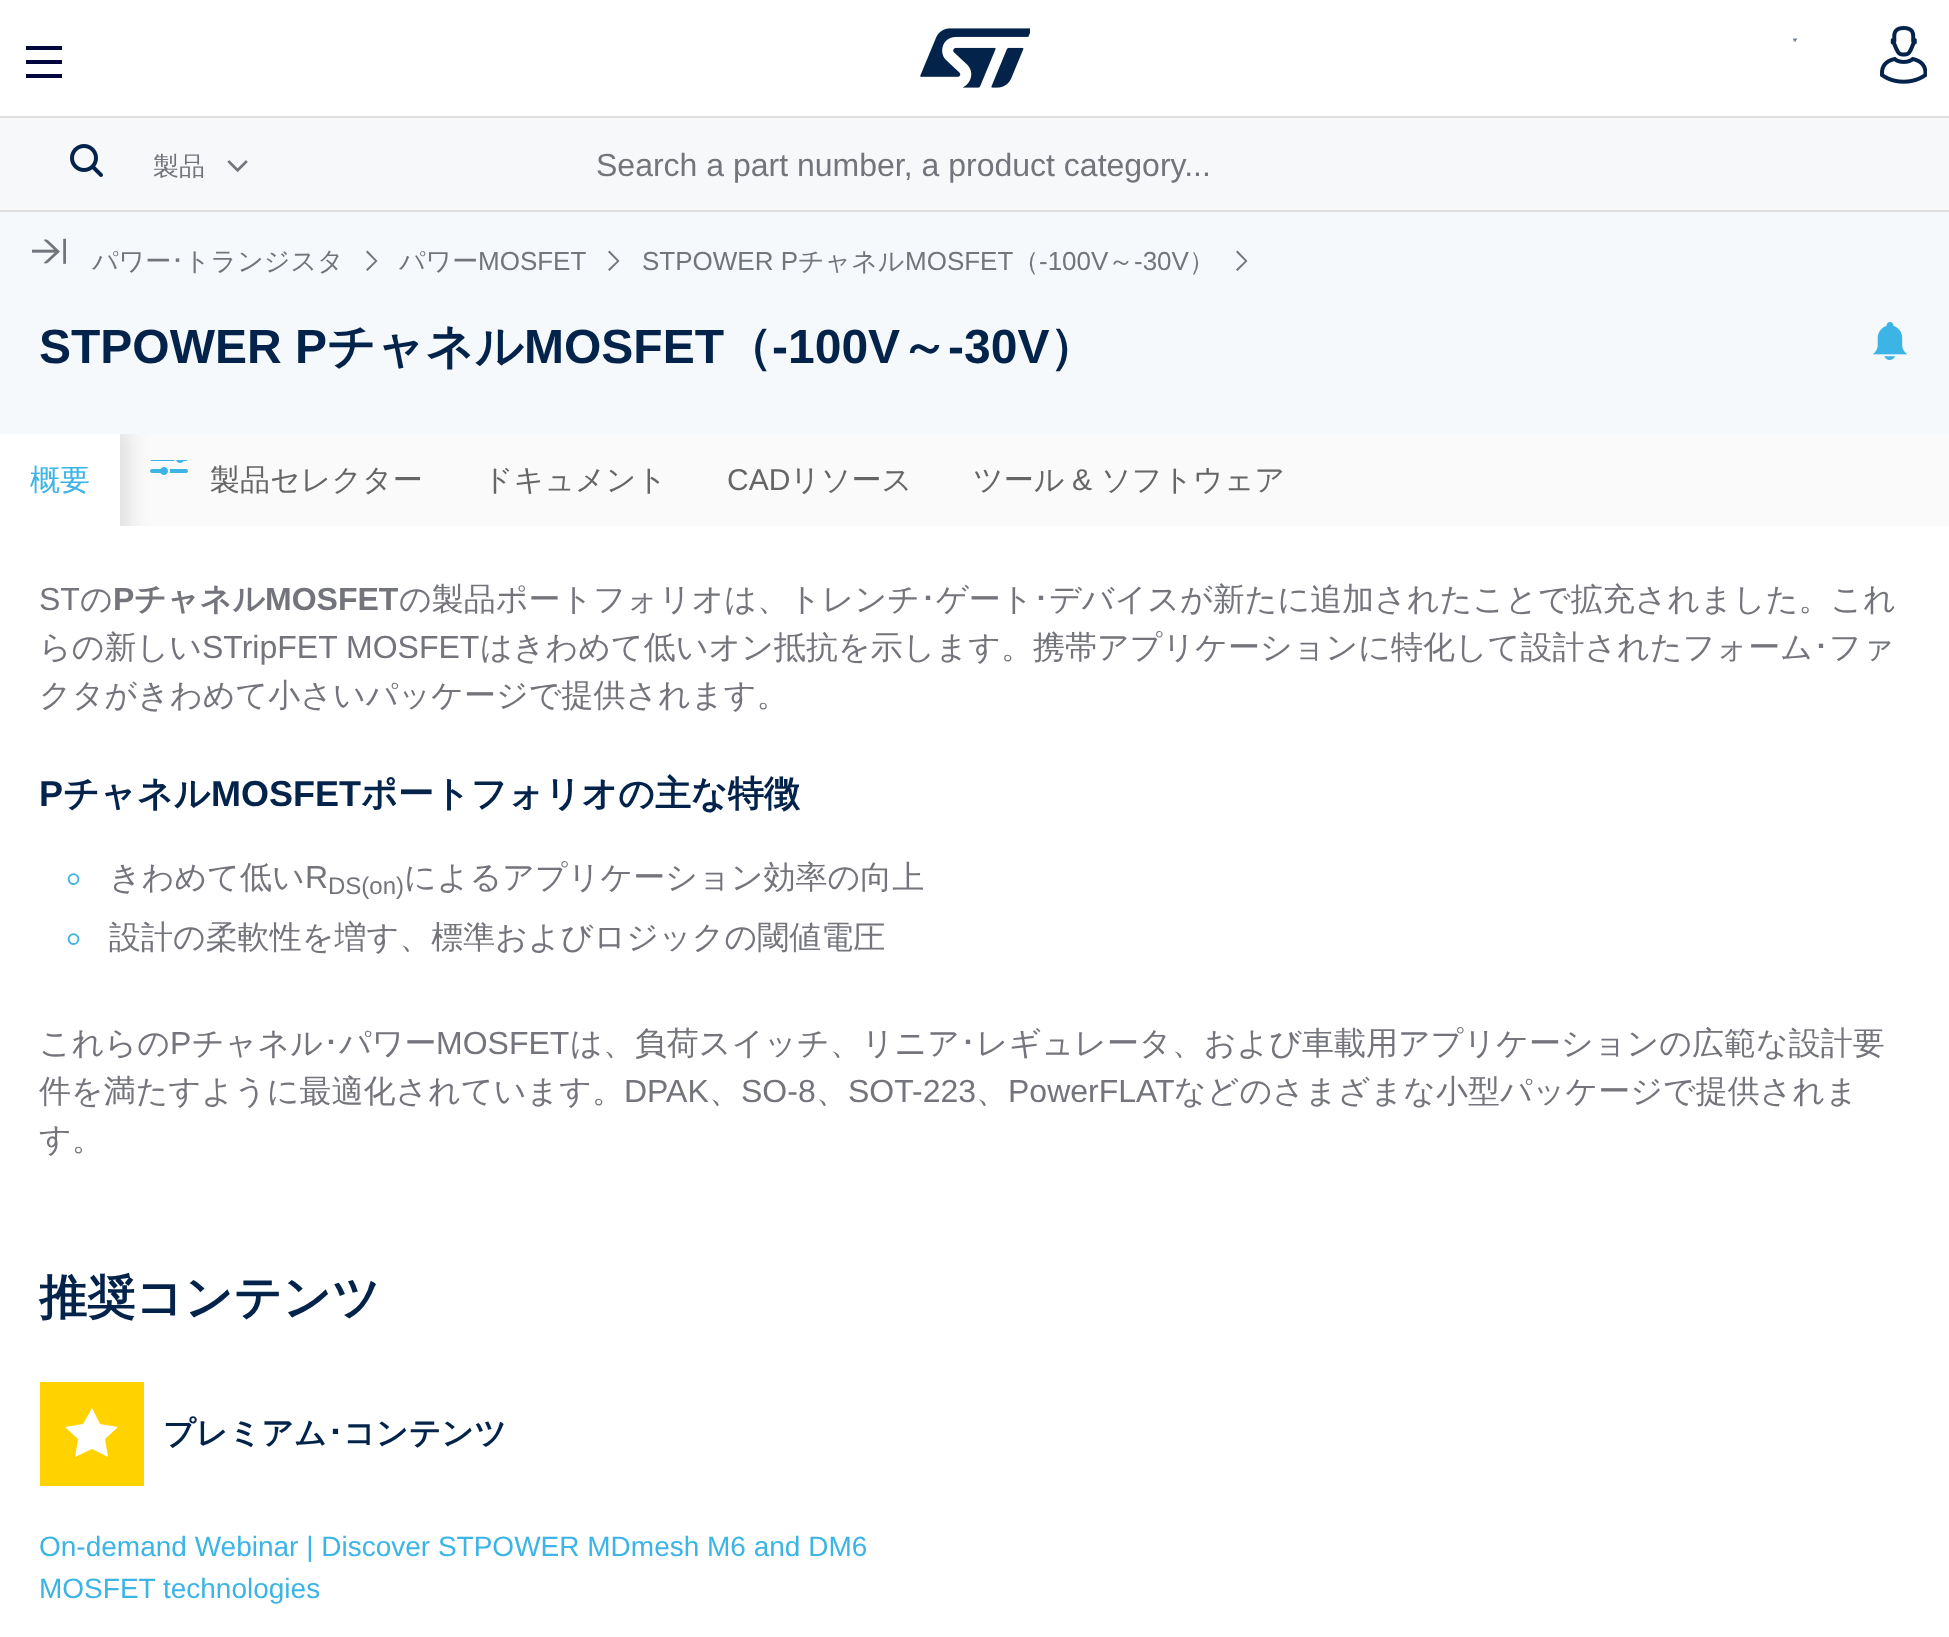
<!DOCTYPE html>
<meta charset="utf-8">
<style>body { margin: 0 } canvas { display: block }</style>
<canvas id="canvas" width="1949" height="1637"></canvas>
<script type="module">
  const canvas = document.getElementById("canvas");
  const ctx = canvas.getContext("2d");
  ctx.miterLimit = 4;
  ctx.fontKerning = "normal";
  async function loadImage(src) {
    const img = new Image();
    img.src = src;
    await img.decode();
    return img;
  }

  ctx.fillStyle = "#ffffff";
  ctx.fillRect(0, 0, 1949, 1637);
  ctx.fillStyle = "#03053d";
  ctx.beginPath();
  ctx.moveTo(26, 46);
  ctx.lineTo(62, 46);
  ctx.lineTo(62, 50);
  ctx.lineTo(26, 50);
  ctx.closePath();
  ctx.moveTo(26, 60);
  ctx.lineTo(62, 60);
  ctx.lineTo(62, 64);
  ctx.lineTo(26, 64);
  ctx.closePath();
  ctx.moveTo(26, 74);
  ctx.lineTo(62, 74);
  ctx.lineTo(62, 78);
  ctx.lineTo(26, 78);
  ctx.closePath();
  ctx.fill();
  ctx.drawImage(await loadImage("img1.png"), 920, 28, 110, 60);
  ctx.drawImage(await loadImage("img2.png"), 1793, 38, 4, 4);
  ctx.drawImage(await loadImage("img3.png"), 1880, 26, 47, 58);
  ctx.fillStyle = "#dfdfdf";
  ctx.fillRect(0, 116, 1949, 2);
  ctx.fillRect(0, 210, 1949, 2);
  ctx.fillStyle = "#f7f8fa";
  ctx.fillRect(0, 118, 1949, 92);
  ctx.drawImage(await loadImage("img4.png"), 70, 144, 33, 33);
  ctx.font = "500 26px WenQuanYi Zen Hei";
  ctx.fillStyle = "#74757c";
  ctx.fillText("製品", 153, 175);
  ctx.drawImage(await loadImage("img5.png"), 227, 160, 21, 12);
  ctx.font = "32px Liberation Sans";
  ctx.fillText("Search a part number, a product category...", 596, 176);
  ctx.fillStyle = "#f6f9fb";
  ctx.fillRect(0, 212, 1949, 222);
  ctx.drawImage(await loadImage("img6.png"), 32, 238, 34, 26);
  ctx.font = "500 26px WenQuanYi Zen Hei";
  ctx.fillStyle = "#74757c";
  ctx.fillText("パワー", 92, 270);
  ctx.font = "26px IPAPGothic";
  ctx.fillText("･", 171, 270);
  ctx.font = "500 26px WenQuanYi Zen Hei";
  ctx.fillText("トランジスタ", 184, 270);
  ctx.beginPath();
  ctx.moveTo(375, 261);
  ctx.lineTo(366, 269.5);
  ctx.lineTo(367.5, 271);
  ctx.lineTo(377.5, 261);
  ctx.lineTo(367.5, 250.5);
  ctx.lineTo(366, 252);
  ctx.closePath();
  ctx.fill();
  ctx.fillText("パワー", 399, 270);
  ctx.font = "26px Liberation Sans";
  ctx.fillText("MOSFET", 478, 270);
  ctx.beginPath();
  ctx.moveTo(617, 261);
  ctx.lineTo(608, 269.5);
  ctx.lineTo(609.5, 271);
  ctx.lineTo(619.5, 261);
  ctx.lineTo(609.5, 250.5);
  ctx.lineTo(608, 252);
  ctx.closePath();
  ctx.fill();
  ctx.fillText("STPOWER P", 642, 270);
  ctx.font = "500 26px WenQuanYi Zen Hei";
  ctx.fillText("チャネル", 798, 270);
  ctx.font = "26px Liberation Sans";
  ctx.fillText("MOSFET", 905, 270);
  ctx.font = "500 26px WenQuanYi Zen Hei";
  ctx.fillText("（", 1013, 270);
  ctx.font = "26px Liberation Sans";
  ctx.fillText("-100V", 1039, 270);
  ctx.font = "500 26px WenQuanYi Zen Hei";
  ctx.fillText("～", 1108, 270);
  ctx.font = "26px Liberation Sans";
  ctx.fillText("-30V", 1134, 270);
  ctx.font = "500 26px WenQuanYi Zen Hei";
  ctx.fillText("）", 1189, 270);
  ctx.beginPath();
  ctx.moveTo(1245, 261);
  ctx.lineTo(1236, 269.5);
  ctx.lineTo(1237.5, 271);
  ctx.lineTo(1247.5, 261);
  ctx.lineTo(1237.5, 250.5);
  ctx.lineTo(1236, 252);
  ctx.closePath();
  ctx.fill();
  ctx.font = "bold 48px Liberation Sans";
  ctx.fillStyle = "#03234b";
  ctx.fillText("STPOWER P", 39, 363);
  ctx.font = "bold 48px WenQuanYi Zen Hei";
  ctx.fillText("チャネル", 327, 363);
  ctx.font = "bold 48px Liberation Sans";
  ctx.fillText("MOSFET", 524, 363);
  ctx.font = "bold 48px WenQuanYi Zen Hei";
  ctx.fillText("（", 724, 363);
  ctx.font = "bold 48px Liberation Sans";
  ctx.fillText("-100V", 772, 363);
  ctx.font = "bold 48px WenQuanYi Zen Hei";
  ctx.fillText("～", 900, 363);
  ctx.font = "bold 48px Liberation Sans";
  ctx.fillText("-30V", 948, 363);
  ctx.font = "bold 48px WenQuanYi Zen Hei";
  ctx.fillText("）", 1049, 363);
  ctx.drawImage(await loadImage("img7.png"), 1873, 322, 34, 38);
  ctx.fillStyle = "#fafafa";
  ctx.fillRect(120, 434, 1829, 92);
  ctx.save();
  ctx.beginPath();
  ctx.rect(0, 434, 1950, 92);
  ctx.clip();
  ctx.fillStyle = "rgba(0, 0, 0, 0.1)";
  ctx.filter = "blur(10px)";
  ctx.beginPath();
  ctx.rect(-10, 428, 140, 112);
  ctx.fill();
  ctx.filter = "none";
  ctx.restore();
  ctx.fillStyle = "#ffffff";
  ctx.fillRect(0, 434, 120, 92);
  ctx.font = "500 30px WenQuanYi Zen Hei";
  ctx.fillStyle = "#3cb4e6";
  ctx.fillText("概要", 30, 490);
  ctx.drawImage(await loadImage("img8.png"), 150, 460, 38, 15);
  ctx.fillStyle = "#666666";
  ctx.fillText("製品セレクター", 210, 490);
  ctx.fillText("ドキュメント", 483, 490);
  ctx.font = "30px Liberation Sans";
  ctx.fillText("CAD", 727, 490);
  ctx.font = "500 30px WenQuanYi Zen Hei";
  ctx.fillText("リソース", 790, 490);
  ctx.fillText("ツール", 973, 490);
  ctx.font = "30px Liberation Sans";
  ctx.fillText("&", 1072, 490);
  ctx.font = "500 30px WenQuanYi Zen Hei";
  ctx.fillText("ソフトウェア", 1101, 490);
  ctx.font = "32px Liberation Sans";
  ctx.fillStyle = "#74757c";
  ctx.fillText("ST", 39, 610);
  ctx.font = "500 32px WenQuanYi Zen Hei";
  ctx.fillText("の", 80, 610);
  ctx.font = "bold 32px Liberation Sans";
  ctx.fillText("P", 113, 610);
  ctx.font = "bold 32px WenQuanYi Zen Hei";
  ctx.fillText("チャネル", 134, 610);
  ctx.font = "bold 32px Liberation Sans";
  ctx.fillText("MOSFET", 265, 610);
  ctx.font = "500 32px WenQuanYi Zen Hei";
  ctx.fillText("の製品ポートフォリオは、トレンチ", 399, 610);
  ctx.font = "32px IPAPGothic";
  ctx.fillText("･", 920, 610);
  ctx.font = "500 32px WenQuanYi Zen Hei";
  ctx.fillText("ゲート", 936, 610);
  ctx.font = "32px IPAPGothic";
  ctx.fillText("･", 1033, 610);
  ctx.font = "500 32px WenQuanYi Zen Hei";
  ctx.fillText("デバイスが新たに追加されたことで拡充されました。これ", 1049, 610);
  ctx.fillText("らの新しい", 39, 658);
  ctx.font = "32px Liberation Sans";
  ctx.fillText("STripFET MOSFET", 202, 658);
  ctx.font = "500 32px WenQuanYi Zen Hei";
  ctx.fillText("はきわめて低いオン抵抗を示します。携帯アプリケーションに特化して設計されたフォーム", 480, 658);
  ctx.font = "32px IPAPGothic";
  ctx.fillText("･", 1813, 658);
  ctx.font = "500 32px WenQuanYi Zen Hei";
  ctx.fillText("ファ", 1829, 658);
  ctx.fillText("クタがきわめて小さいパッケージで提供されます。", 39, 706);
  ctx.font = "bold 36px Liberation Sans";
  ctx.fillStyle = "#03234b";
  ctx.fillText("P", 39, 806);
  ctx.font = "bold 36px WenQuanYi Zen Hei";
  ctx.fillText("チャネル", 63, 806);
  ctx.font = "bold 36px Liberation Sans";
  ctx.fillText("MOSFET", 211, 806);
  ctx.font = "bold 36px WenQuanYi Zen Hei";
  ctx.fillText("ポートフォリオの主な特徴", 361, 806);
  ctx.font = "48px Liberation Sans";
  ctx.fillStyle = "#3cb4e6";
  ctx.fillText("◦", 65, 894);
  ctx.font = "500 32px WenQuanYi Zen Hei";
  ctx.fillStyle = "#74757c";
  ctx.fillText("きわめて低い", 109, 888);
  ctx.font = "32px Liberation Sans";
  ctx.fillText("R", 305, 888);
  ctx.font = "24px Liberation Sans";
  ctx.fillText("DS(on)", 328, 894);
  ctx.font = "500 32px WenQuanYi Zen Hei";
  ctx.fillText("によるアプリケーション効率の向上", 404, 888);
  ctx.font = "48px Liberation Sans";
  ctx.fillStyle = "#3cb4e6";
  ctx.fillText("◦", 65, 954);
  ctx.font = "500 32px WenQuanYi Zen Hei";
  ctx.fillStyle = "#74757c";
  ctx.fillText("設計の柔軟性を増す、標準およびロジックの閾値電圧", 109, 948);
  ctx.fillText("これらの", 39, 1054);
  ctx.font = "32px Liberation Sans";
  ctx.fillText("P", 170, 1054);
  ctx.font = "500 32px WenQuanYi Zen Hei";
  ctx.fillText("チャネル", 192, 1054);
  ctx.font = "32px IPAPGothic";
  ctx.fillText("･", 323, 1054);
  ctx.font = "500 32px WenQuanYi Zen Hei";
  ctx.fillText("パワー", 339, 1054);
  ctx.font = "32px Liberation Sans";
  ctx.fillText("MOSFET", 436, 1054);
  ctx.font = "500 32px WenQuanYi Zen Hei";
  ctx.fillText("は、負荷スイッチ、リニア", 570, 1054);
  ctx.font = "32px IPAPGothic";
  ctx.fillText("･", 960, 1054);
  ctx.font = "500 32px WenQuanYi Zen Hei";
  ctx.fillText("レギュレータ、および車載用アプリケーションの広範な設計要", 976, 1054);
  ctx.fillText("件を満たすように最適化されています。", 39, 1102);
  ctx.font = "32px Liberation Sans";
  ctx.fillText("DPAK", 624, 1102);
  ctx.font = "500 32px WenQuanYi Zen Hei";
  ctx.fillText("、", 709, 1102);
  ctx.font = "32px Liberation Sans";
  ctx.fillText("SO-8", 741, 1102);
  ctx.font = "500 32px WenQuanYi Zen Hei";
  ctx.fillText("、", 816, 1102);
  ctx.font = "32px Liberation Sans";
  ctx.fillText("SOT-223", 848, 1102);
  ctx.font = "500 32px WenQuanYi Zen Hei";
  ctx.fillText("、", 976, 1102);
  ctx.font = "32px Liberation Sans";
  ctx.fillText("PowerFLAT", 1008, 1102);
  ctx.font = "500 32px WenQuanYi Zen Hei";
  ctx.fillText("などのさまざまな小型パッケージで提供されま", 1174, 1102);
  ctx.fillText("す。", 39, 1150);
  ctx.font = "bold 48px WenQuanYi Zen Hei";
  ctx.fillStyle = "#03234b";
  ctx.fillText("推奨コンテンツ", 39, 1314);
  ctx.fillStyle = "#ffd200";
  ctx.fillRect(40, 1382, 104, 104);
  ctx.fillStyle = "#ffffff";
  ctx.beginPath();
  ctx.moveTo(75, 1457);
  ctx.lineTo(78, 1439);
  ctx.lineTo(65, 1427);
  ctx.lineTo(83, 1424);
  ctx.lineTo(92, 1408);
  ctx.lineTo(100, 1424);
  ctx.lineTo(118, 1427);
  ctx.lineTo(105, 1439);
  ctx.lineTo(108, 1457);
  ctx.lineTo(92, 1449);
  ctx.closePath();
  ctx.fill("evenodd");
  ctx.font = "bold 32px WenQuanYi Zen Hei";
  ctx.fillStyle = "#03234b";
  ctx.fillText("プレミアム", 163, 1444);
  ctx.font = "bold 32px IPAPGothic";
  ctx.fillText("･", 327, 1444);
  ctx.font = "bold 32px WenQuanYi Zen Hei";
  ctx.fillText("コンテンツ", 343, 1444);
  ctx.font = "28px Liberation Sans";
  ctx.fillStyle = "#3cb4e6";
  ctx.fillText("On-demand Webinar | Discover STPOWER MDmesh M6 and DM6", 39, 1556);
  ctx.fillText("MOSFET technologies", 39, 1598);
</script>
